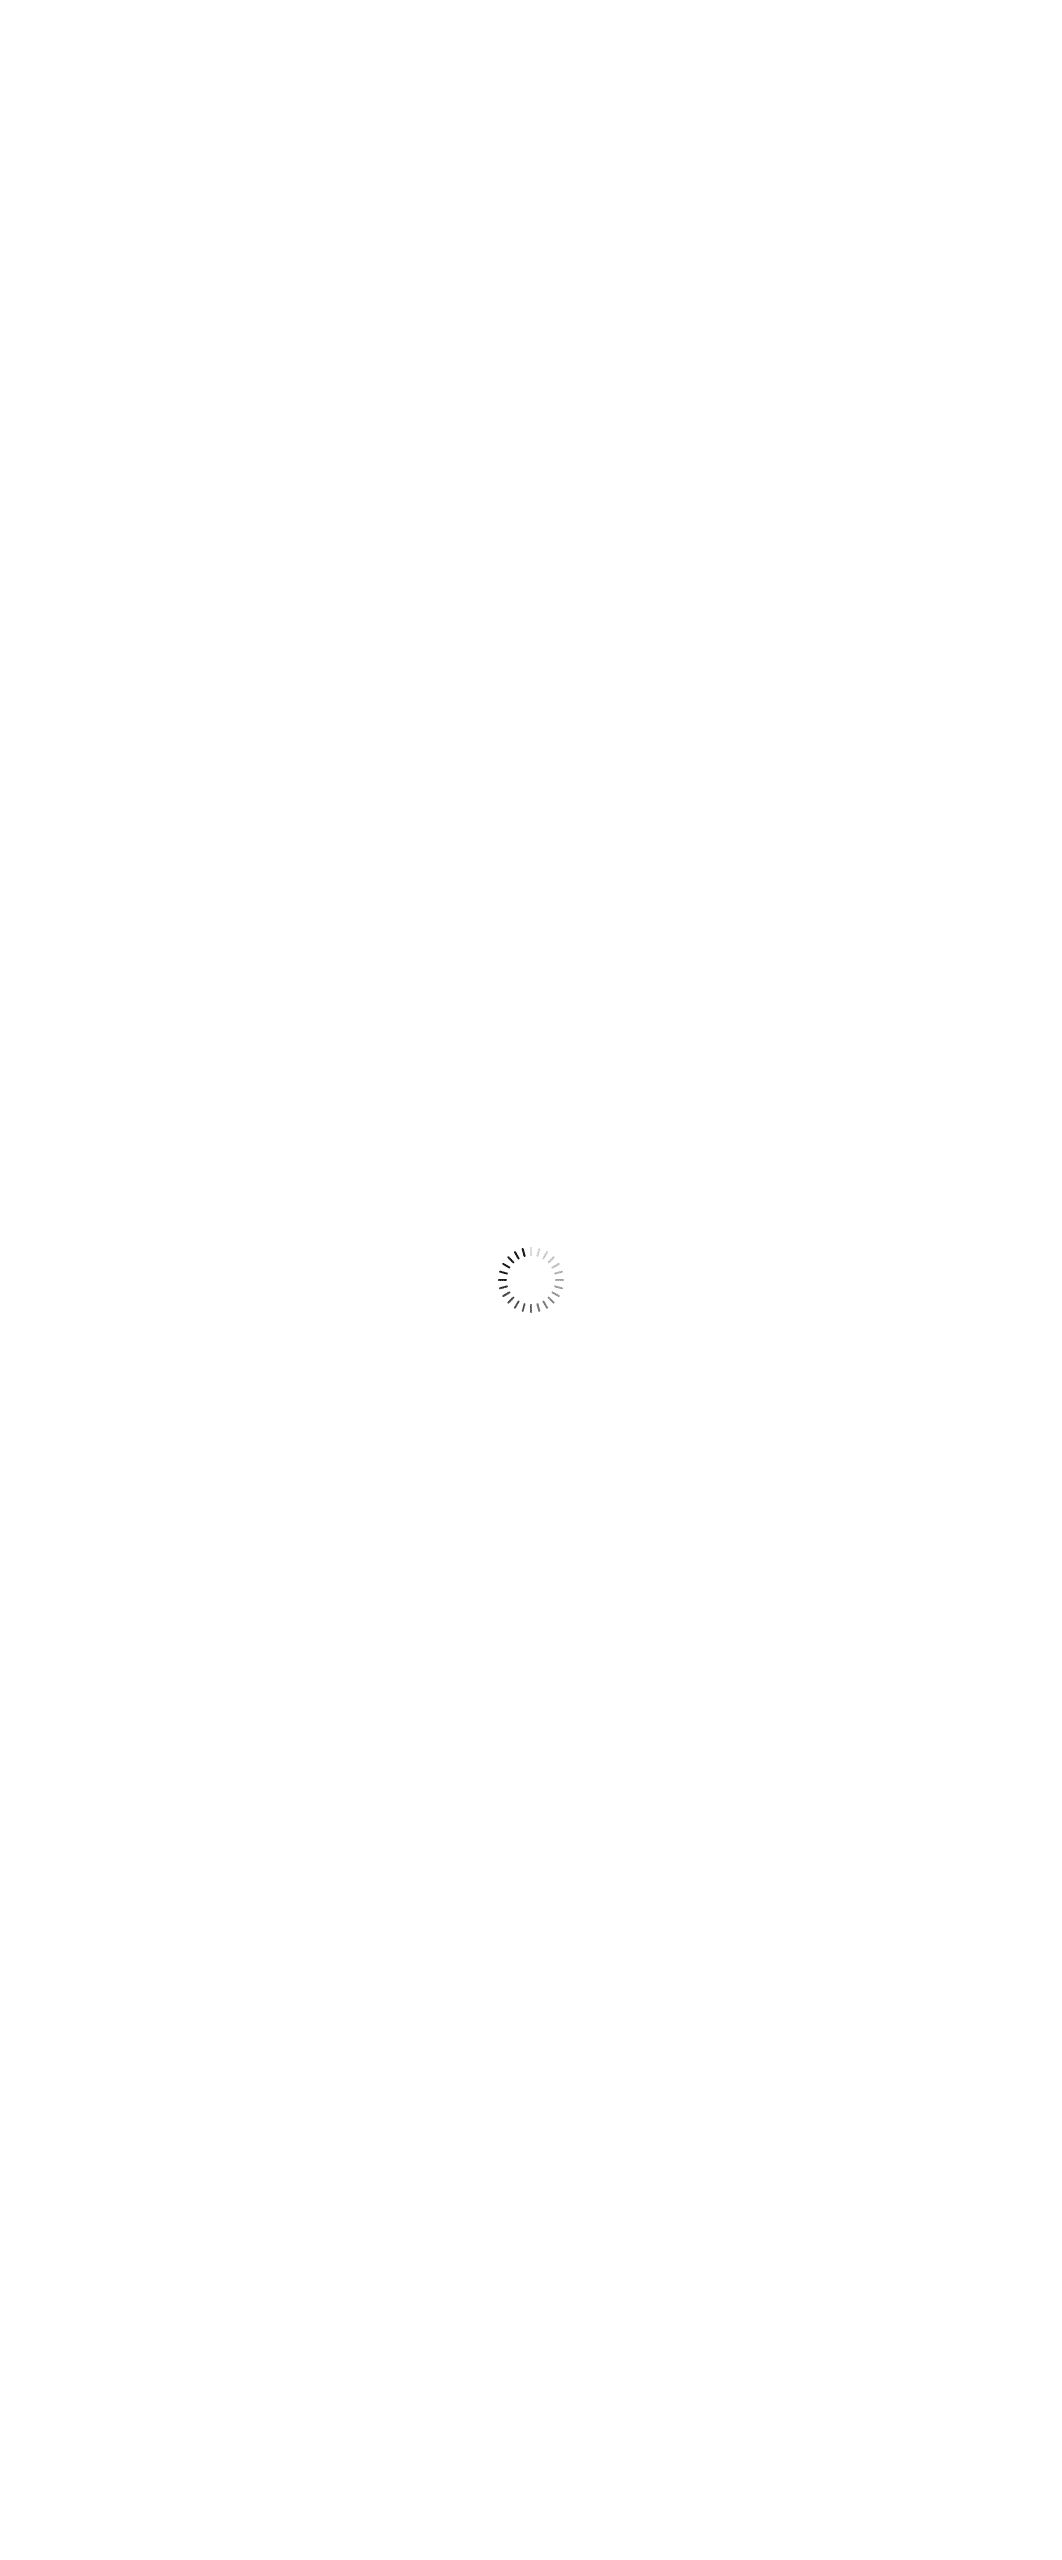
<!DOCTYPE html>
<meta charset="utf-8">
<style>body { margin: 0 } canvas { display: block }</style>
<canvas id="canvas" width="1062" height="2560"></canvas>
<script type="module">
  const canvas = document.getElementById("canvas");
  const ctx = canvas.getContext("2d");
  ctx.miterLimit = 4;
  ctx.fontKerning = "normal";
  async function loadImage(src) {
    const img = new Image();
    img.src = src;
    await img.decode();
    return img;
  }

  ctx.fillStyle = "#ffffff";
  ctx.fillRect(0, 0, 1062, 2560);
  ctx.drawImage(await loadImage("img1.png"), 498, 1247, 66, 66);
</script>
